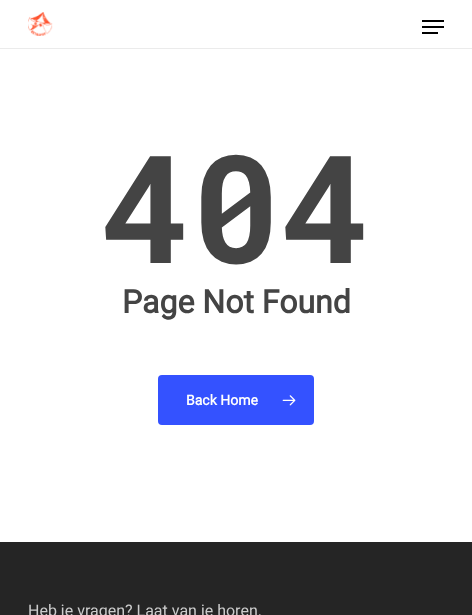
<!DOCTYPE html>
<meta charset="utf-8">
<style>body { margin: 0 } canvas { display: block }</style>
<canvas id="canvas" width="472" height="615"></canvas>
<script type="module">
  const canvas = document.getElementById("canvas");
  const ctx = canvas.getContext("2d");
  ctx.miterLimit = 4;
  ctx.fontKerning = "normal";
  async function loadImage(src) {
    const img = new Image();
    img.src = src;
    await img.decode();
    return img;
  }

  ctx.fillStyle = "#ffffff";
  ctx.fillRect(0, 0, 472, 615);
  ctx.fillStyle = "#ebebeb";
  ctx.fillRect(0, 48, 472, 1);
  ctx.drawImage(await loadImage("img1.png"), 28, 12, 25, 24);
  ctx.fillStyle = "#000000";
  ctx.fillRect(422, 20, 22, 2);
  ctx.fillRect(422, 32, 16, 2);
  ctx.fillRect(422, 26, 22, 2);
  ctx.font = "bold 150px Roboto Mono";
  ctx.fillStyle = "#444444";
  ctx.fillText("404", 101, 263);
  ctx.font = "bold 32px Roboto";
  ctx.fillText("Page Not Found", 122, 313);
  ctx.fillStyle = "#3452ff";
  ctx.beginPath();
  ctx.roundRect(158, 375, 156, 50, 4);
  ctx.fill();
  ctx.font = "bold 14px Roboto";
  ctx.fillStyle = "#ffffff";
  ctx.fillText("Back Home", 186, 405);
  ctx.drawImage(await loadImage("img2.png"), 282, 395, 14, 11);
  ctx.fillStyle = "#252525";
  ctx.fillRect(0, 542, 472, 73);
  ctx.font = "16px Roboto";
  ctx.fillStyle = "#cccccc";
  ctx.fillText("Heb je vragen? Laat van je horen.", 28, 616);
</script>
